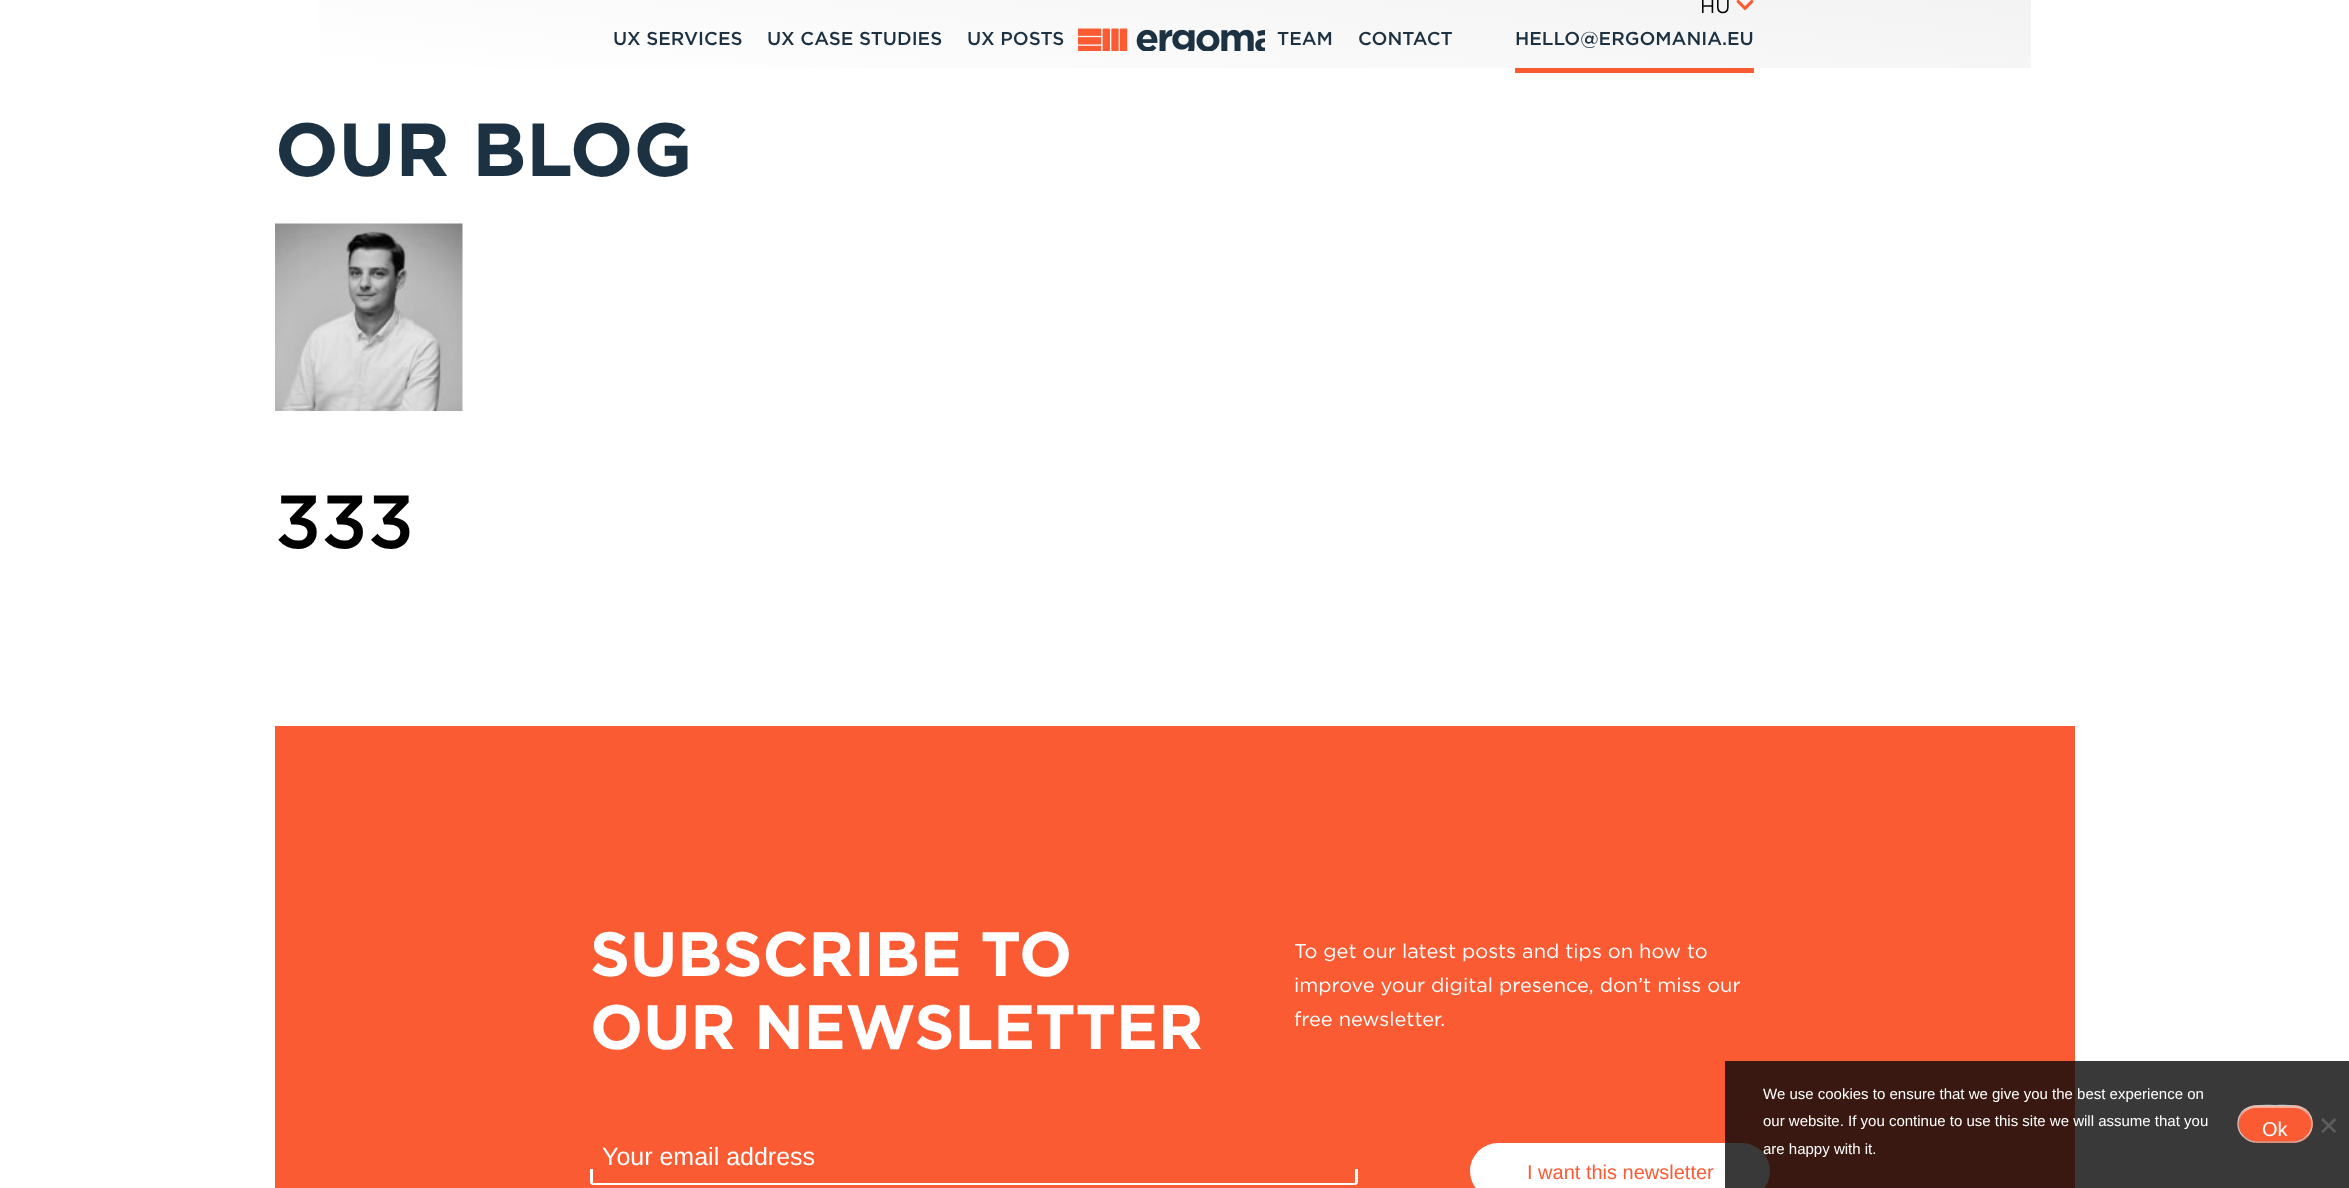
<!DOCTYPE html>
<meta charset="utf-8">
<style>body { margin: 0 } canvas { display: block }</style>
<canvas id="canvas" width="2349" height="1188"></canvas>
<script type="module">
  const canvas = document.getElementById("canvas");
  const ctx = canvas.getContext("2d");
  ctx.miterLimit = 4;
  ctx.fontKerning = "normal";
  async function loadImage(src) {
    const img = new Image();
    img.src = src;
    await img.decode();
    return img;
  }
  let gradient;

  ctx.fillStyle = "#ffffff";
  ctx.fillRect(0, 0, 2349, 1188);
  gradient = ctx.createLinearGradient(1196, -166, 1154, 170);
  gradient.addColorStop(0, "#f0f0f0");
  gradient.addColorStop(1, "#ffffff");
  ctx.fillStyle = gradient;
  ctx.fillRect(319, 0, 1712, 68);
  ctx.font = "500 18.75px Gotham";
  ctx.fillStyle = "#1c3142";
  ctx.fillText("UX SERVICES", 613, 45);
  ctx.fillText("UX CASE STUDIES", 767, 45);
  ctx.fillText("UX POSTS", 967, 45);
  ctx.drawImage(await loadImage("img1.png"), 1078, 28, 187, 23);
  ctx.font = "20px Gotham";
  ctx.fillStyle = "#000000";
  ctx.fillText("HU", 1700, 13);
  ctx.drawImage(await loadImage("img2.png"), 1736, 0, 18, 11);
  ctx.font = "500 18.75px Gotham";
  ctx.fillStyle = "#1c3142";
  ctx.fillText("TEAM", 1277, 45);
  ctx.fillText("CONTACT", 1358, 45);
  ctx.fillText("HELLO@ERGOMANIA.EU", 1515, 45);
  ctx.fillStyle = "#fb5b33";
  ctx.fillRect(1515, 68, 239, 5);
  ctx.font = "bold 75px Gotham";
  ctx.fillStyle = "#1c3142";
  ctx.fillText("OUR BLOG", 275, 176);
  ctx.drawImage(await loadImage("img3.png"), 275, 223, 188, 188);
  ctx.font = "500 75px Gotham";
  ctx.fillStyle = "#000000";
  ctx.fillText("333", 275, 548);
  ctx.fillStyle = "#fb5b33";
  ctx.fillRect(275, 726, 1800, 462);
  ctx.font = "bold 62.5px Gotham";
  ctx.fillStyle = "#ffffff";
  ctx.fillText("SUBSCRIBE TO", 590, 976);
  ctx.fillText("OUR NEWSLETTER", 590, 1049);
  ctx.font = "20px Gotham";
  ctx.fillText("To get our latest posts and tips on how to", 1294, 958);
  ctx.fillText("improve your digital presence, don’t miss our", 1294, 992);
  ctx.fillText("free newsletter.", 1294, 1026);
  ctx.save();
  ctx.beginPath();
  ctx.roundRect(590, 1105, 768, 80, 4);
  ctx.clip();
  ctx.fillRect(1355, 1169, 3, 16);
  ctx.fillRect(590, 1183, 768, 2);
  ctx.fillRect(590, 1169, 3, 16);
  ctx.restore();
  ctx.font = "25px Liberation Sans";
  ctx.fillText("Your email address", 602, 1165);
  ctx.beginPath();
  ctx.roundRect(1470, 1143, 300, 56, 28);
  ctx.fill();
  ctx.font = "20px Liberation Sans";
  ctx.fillStyle = "#fb5b33";
  ctx.fillText("I want this newsletter", 1527, 1179);
  ctx.fillStyle = "rgba(8, 8, 7, 0.8)";
  ctx.fillRect(1725, 1061, 624, 127);
  ctx.font = "15px Liberation Sans";
  ctx.fillStyle = "#ffffff";
  ctx.fillText("We use cookies to ensure that we give you the best experience on", 1763, 1099);
  ctx.fillText("our website. If you continue to use this site we will assume that you", 1763, 1126);
  ctx.fillText("are happy with it.", 1763, 1154);
  ctx.fillStyle = "#fb5b33";
  ctx.beginPath();
  ctx.roundRect(2238, 1105, 75, 38, 19);
  ctx.fill();
  ctx.fillStyle = "#fdad99";
  ctx.beginPath();
  ctx.moveTo(2256, 1108);
  ctx.lineTo(2294, 1108);
  ctx.bezierCurveTo(2303, 1108, 2311, 1115, 2311, 1124);
  ctx.bezierCurveTo(2311, 1114, 2303, 1106, 2294, 1106);
  ctx.lineTo(2256, 1106);
  ctx.bezierCurveTo(2247, 1106, 2239, 1114, 2239, 1124);
  ctx.bezierCurveTo(2239, 1115, 2247, 1108, 2256, 1108);
  ctx.closePath();
  ctx.fill();
  ctx.beginPath();
  ctx.moveTo(2306.5, 1136.5);
  ctx.bezierCurveTo(2303, 1140, 2298.5, 1142, 2294, 1142);
  ctx.lineTo(2256, 1142);
  ctx.bezierCurveTo(2251.5, 1142, 2247, 1140, 2243.5, 1136.5);
  ctx.strokeStyle = "#bbbbbb";
  ctx.lineWidth = 1.2;
  ctx.stroke();
  ctx.beginPath();
  ctx.moveTo(2243.5, 1136.5);
  ctx.bezierCurveTo(2239.5, 1133, 2237.5, 1127.5, 2238, 1122);
  ctx.bezierCurveTo(2240, 1102.5, 2261, 1105.5, 2275, 1105.5);
  ctx.bezierCurveTo(2289, 1105.5, 2310, 1102.5, 2312, 1122);
  ctx.bezierCurveTo(2312.5, 1127.5, 2310.5, 1133, 2306.5, 1136.5);
  ctx.strokeStyle = "#cccccc";
  ctx.stroke();
  ctx.font = "20px Liberation Sans";
  ctx.fillStyle = "#ffffff";
  ctx.fillText("Ok", 2262, 1136);
  ctx.fillStyle = "#5d5d5c";
  ctx.beginPath();
  ctx.moveTo(2334.5, 1118);
  ctx.lineTo(2336.5, 1120);
  ctx.lineTo(2323, 1133);
  ctx.lineTo(2321, 1131.5);
  ctx.closePath();
  ctx.fill();
  ctx.beginPath();
  ctx.moveTo(2321, 1120);
  ctx.lineTo(2323, 1118);
  ctx.lineTo(2336.5, 1131.5);
  ctx.lineTo(2334.5, 1133);
  ctx.closePath();
  ctx.fill();
</script>
